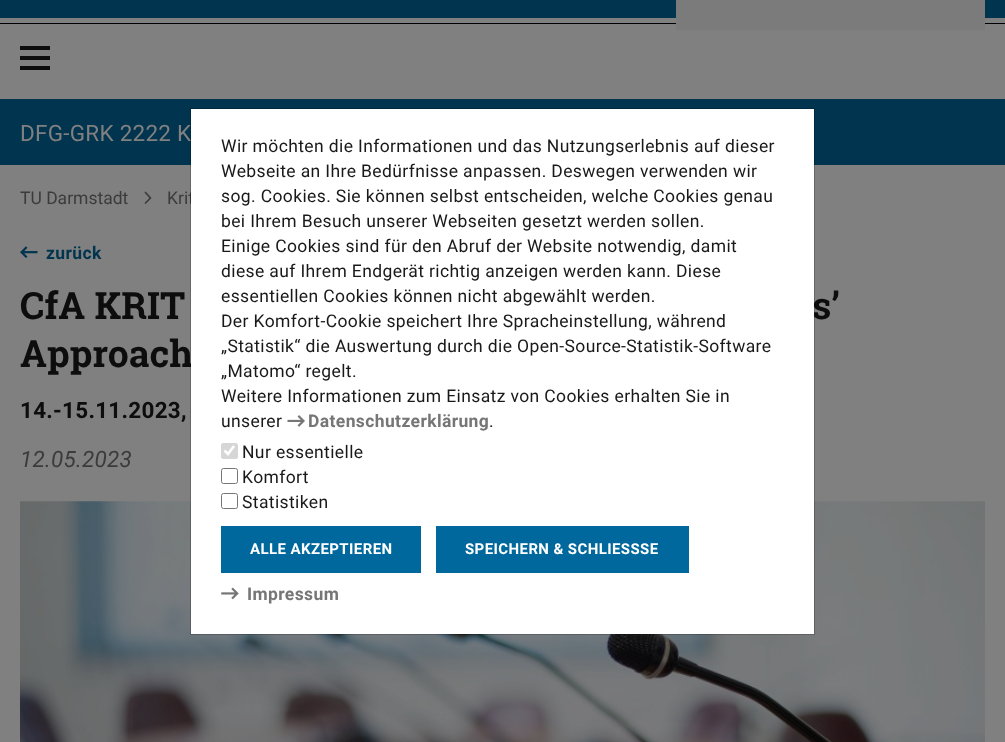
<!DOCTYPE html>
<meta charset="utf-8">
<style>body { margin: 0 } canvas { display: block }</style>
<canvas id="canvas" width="1005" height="742"></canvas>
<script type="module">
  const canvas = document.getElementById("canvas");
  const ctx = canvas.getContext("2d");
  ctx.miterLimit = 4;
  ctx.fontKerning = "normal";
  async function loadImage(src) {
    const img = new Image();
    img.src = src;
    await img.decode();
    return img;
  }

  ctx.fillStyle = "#808080";
  ctx.fillRect(0, 0, 1005, 742);
  ctx.fillStyle = "#00344f";
  ctx.fillRect(0, 0, 1005, 18);
  ctx.fillStyle = "#000000";
  ctx.fillRect(0, 23, 1005, 1);
  ctx.fillStyle = "#7b7b7b";
  ctx.fillRect(676, 0, 309, 30);
  ctx.fillStyle = "#0d0d0d";
  ctx.fillRect(20, 56, 30, 4);
  ctx.fillRect(20, 46, 30, 4);
  ctx.fillRect(20, 66, 30, 4);
  ctx.fillStyle = "#00344f";
  ctx.fillRect(0, 99, 1005, 66);
  ctx.letterSpacing = "0.25px";
  ctx.font = "22.5px Roboto";
  ctx.fillStyle = "#808080";
  ctx.fillText("DFG-GRK 2222 K", 20, 141);
  ctx.letterSpacing = "0px";
  ctx.font = "17.5px Roboto";
  ctx.fillStyle = "#3b3b3b";
  ctx.fillText("TU Darmstadt", 20, 204);
  ctx.beginPath();
  ctx.moveTo(145.5, 203);
  ctx.lineTo(150.5, 198);
  ctx.lineTo(145.5, 192.5);
  ctx.strokeStyle = "#3b3b3b";
  ctx.lineWidth = 1.7;
  ctx.lineCap = "round";
  ctx.lineJoin = "round";
  ctx.stroke();
  ctx.fillText("Krit", 167, 204);
  ctx.drawImage(await loadImage("img1.png"), 20, 246, 18, 12);
  ctx.letterSpacing = "0.38px";
  ctx.font = "bold 17.5px Roboto";
  ctx.fillStyle = "#00344f";
  ctx.fillText("zurück", 46, 259);
  ctx.letterSpacing = "0px";
  ctx.font = "bold 37.5px Roboto Slab";
  ctx.fillStyle = "#0d0d0d";
  ctx.fillText("CfA KRIT", 20, 319);
  ctx.fillText("s’", 812, 319);
  ctx.fillText("Approach", 20, 367);
  ctx.letterSpacing = "0.25px";
  ctx.font = "bold 22.5px Roboto";
  ctx.fillText("14.-15.11.2023,", 20, 418);
  ctx.font = "italic 22.5px Roboto";
  ctx.fillStyle = "#3b3b3b";
  ctx.fillText("12.05.2023", 20, 467);
  ctx.drawImage(await loadImage("img2.png"), 20, 501, 965, 241);
  ctx.fillStyle = "#ffffff";
  ctx.fillRect(191, 109, 623, 525);
  ctx.strokeStyle = "rgba(0, 0, 0, 0.2)";
  ctx.lineWidth = 1;
  ctx.lineJoin = "miter";
  ctx.strokeRect(190.5, 108.5, 624, 526);
  ctx.letterSpacing = "0.38px";
  ctx.font = "17.5px Roboto";
  ctx.fillStyle = "#1a1919";
  ctx.fillText("Wir möchten die Informationen und das Nutzungserlebnis auf dieser", 221, 152);
  ctx.fillText("Webseite an Ihre Bedürfnisse anpassen. Deswegen verwenden wir", 221, 177);
  ctx.fillText("sog. Cookies. Sie können selbst entscheiden, welche Cookies genau", 221, 202);
  ctx.fillText("bei Ihrem Besuch unserer Webseiten gesetzt werden sollen.", 221, 227);
  ctx.fillText("Einige Cookies sind für den Abruf der Website notwendig, damit", 221, 252);
  ctx.fillText("diese auf Ihrem Endgerät richtig anzeigen werden kann. Diese", 221, 277);
  ctx.fillText("essentiellen Cookies können nicht abgewählt werden.", 221, 302);
  ctx.fillText("Der Komfort-Cookie speichert Ihre Spracheinstellung, während", 221, 327);
  ctx.fillText("„Statistik“ die Auswertung durch die Open-Source-Statistik-Software", 221, 352);
  ctx.fillText("„Matomo“ regelt.", 221, 377);
  ctx.fillText("Weitere Informationen zum Einsatz von Cookies erhalten Sie in", 221, 402);
  ctx.fillText("unserer", 221, 427);
  ctx.drawImage(await loadImage("img3.png"), 287, 415, 18, 12);
  ctx.font = "bold 17.5px Roboto";
  ctx.fillStyle = "#767676";
  ctx.fillText("Datenschutzerklärung", 308, 427);
  ctx.font = "17.5px Roboto";
  ctx.fillStyle = "#1a1919";
  ctx.fillText(".", 489, 427);
  ctx.fillStyle = "#d6d6d6";
  ctx.beginPath();
  ctx.roundRect(221, 443, 17, 16, 2.5);
  ctx.fill();
  ctx.beginPath();
  ctx.moveTo(224.5, 450.5);
  ctx.lineTo(228, 454);
  ctx.lineTo(234, 446);
  ctx.strokeStyle = "#ffffff";
  ctx.lineWidth = 2.6;
  ctx.lineCap = "butt";
  ctx.stroke();
  ctx.fillStyle = "#1a1919";
  ctx.fillText("Nur essentielle", 242, 458);
  ctx.beginPath();
  ctx.roundRect(221.5, 468.5, 16, 15, 2);
  ctx.strokeStyle = "#767676";
  ctx.lineWidth = 1;
  ctx.stroke();
  ctx.fillText("Komfort", 242, 483);
  ctx.beginPath();
  ctx.roundRect(221.5, 493.5, 16, 15, 2);
  ctx.stroke();
  ctx.fillText("Statistiken", 242, 508);
  ctx.fillStyle = "#00689d";
  ctx.fillRect(221, 526, 200, 47);
  ctx.letterSpacing = "0.4px";
  ctx.font = "bold 15px Roboto";
  ctx.fillStyle = "#ffffff";
  ctx.fillText("ALLE AKZEPTIEREN", 250, 554);
  ctx.fillStyle = "#00689d";
  ctx.fillRect(436, 526, 253, 47);
  ctx.fillStyle = "#ffffff";
  ctx.fillText("SPEICHERN & SCHLIESSSE", 465, 554);
  ctx.drawImage(await loadImage("img4.png"), 221, 587, 18, 13);
  ctx.letterSpacing = "0.38px";
  ctx.font = "bold 17.5px Roboto";
  ctx.fillStyle = "#767676";
  ctx.fillText("Impressum", 247, 600);
</script>
